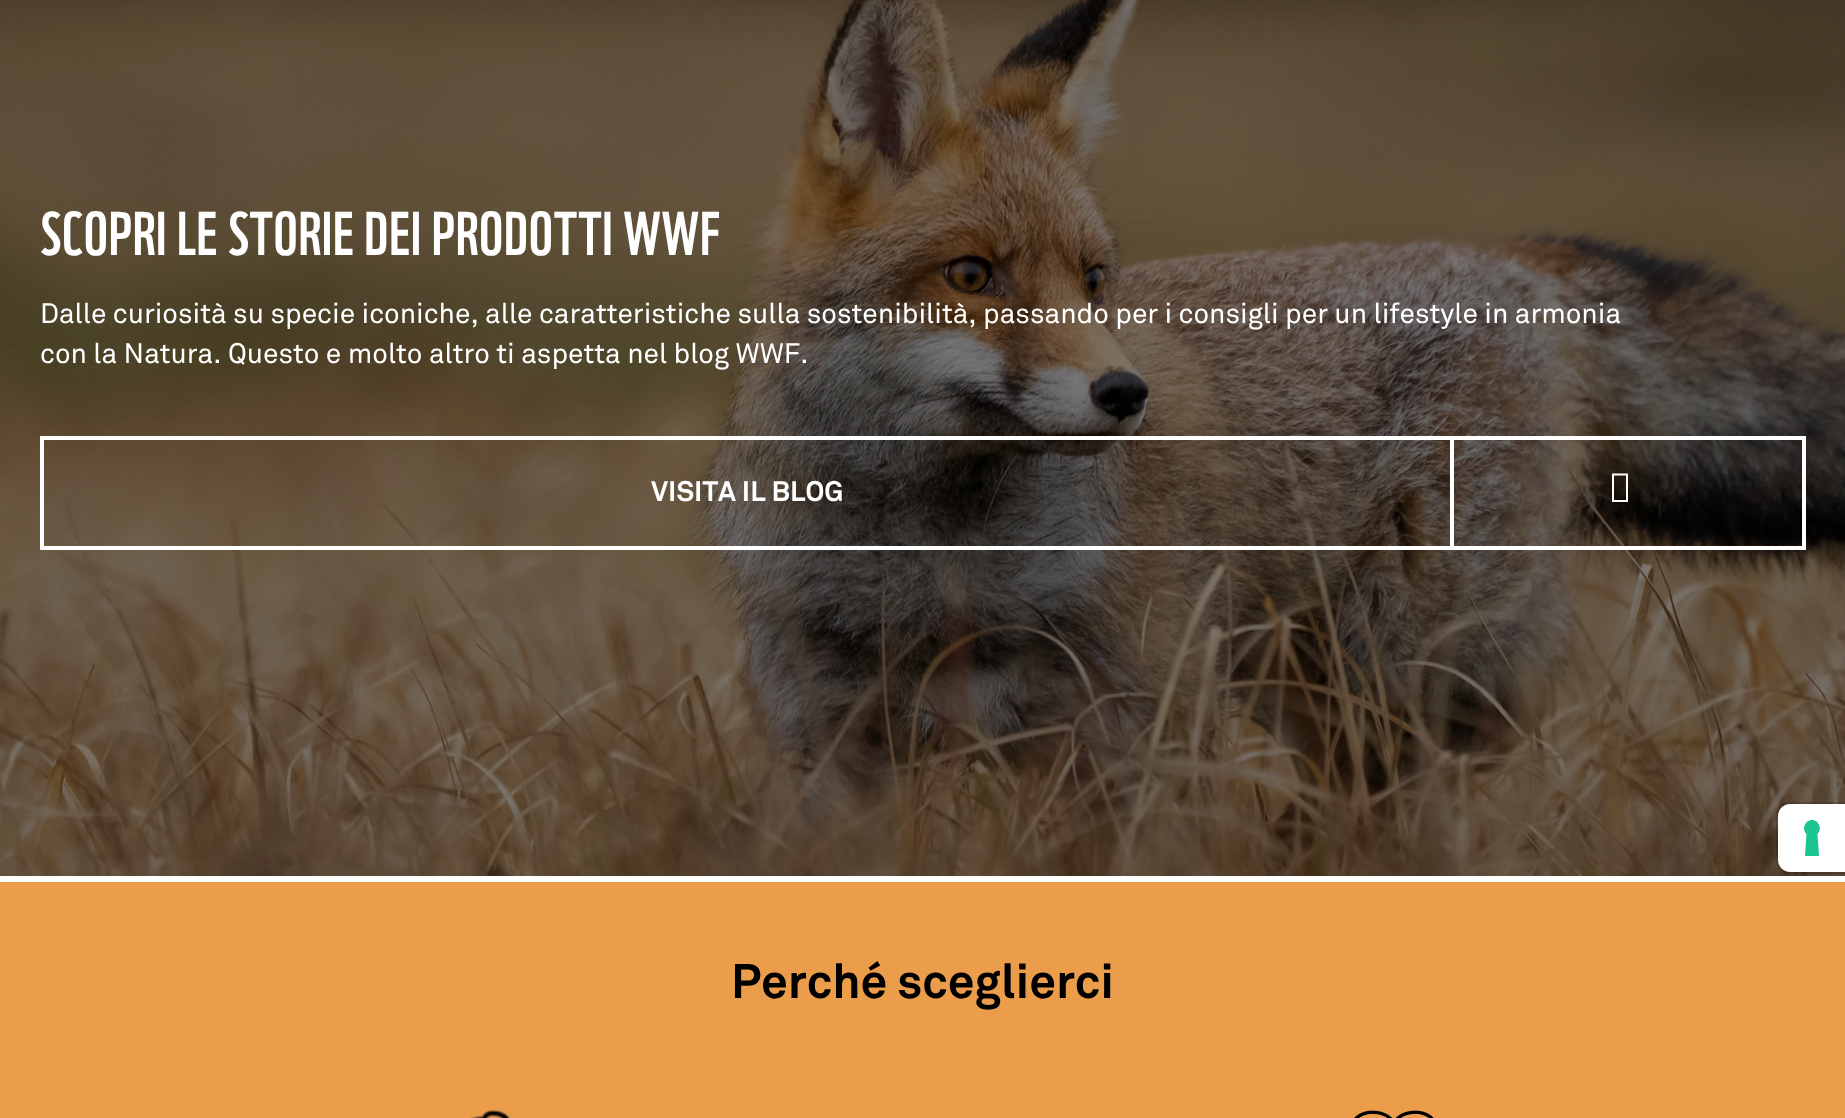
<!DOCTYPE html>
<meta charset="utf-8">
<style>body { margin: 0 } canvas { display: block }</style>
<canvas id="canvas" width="1845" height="1118"></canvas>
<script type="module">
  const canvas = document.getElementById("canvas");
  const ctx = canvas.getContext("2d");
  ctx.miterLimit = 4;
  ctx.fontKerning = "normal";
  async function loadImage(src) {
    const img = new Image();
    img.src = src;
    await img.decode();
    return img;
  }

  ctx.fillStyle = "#ffffff";
  ctx.fillRect(0, 0, 1845, 1118);
  ctx.drawImage(await loadImage("img1.png"), 0, 0, 1845, 876);
  ctx.letterSpacing = "0.8px";
  ctx.font = "60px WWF";
  ctx.fillText("SCOPRI LE STORIE DEI PRODOTTI WWF", 40, 255);
  ctx.letterSpacing = "0px";
  ctx.font = "28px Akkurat";
  ctx.fillText("Dalle curiosità su specie iconiche, alle caratteristiche sulla sostenibilità, passando per i consigli per un lifestyle in armonia", 40, 323);
  ctx.fillText("con la Natura. Questo e molto altro ti aspetta nel blog WWF.", 40, 363);
  ctx.strokeStyle = "#ffffff";
  ctx.lineWidth = 4;
  ctx.strokeRect(42, 438, 1762, 110);
  ctx.font = "bold 28px Akkurat";
  ctx.fillText("VISITA IL BLOG", 651, 501);
  ctx.fillRect(1450, 440, 4, 106);
  ctx.beginPath();
  ctx.moveTo(1612, 502);
  ctx.lineTo(1612, 473.5);
  ctx.lineTo(1628, 473.5);
  ctx.lineTo(1628, 502);
  ctx.closePath();
  ctx.moveTo(1614, 500);
  ctx.lineTo(1626, 500);
  ctx.lineTo(1626, 475.5);
  ctx.lineTo(1614, 475.5);
  ctx.closePath();
  ctx.fill();
  ctx.fillStyle = "#eb9d4c";
  ctx.fillRect(0, 882, 1845, 236);
  ctx.font = "bold 48px Akkurat";
  ctx.fillStyle = "#000000";
  ctx.fillText("Perché sceglierci", 731, 998);
  ctx.drawImage(await loadImage("img2.png"), 470, 1110, 41, 8);
  ctx.drawImage(await loadImage("img3.png"), 1354, 1110, 80, 8);
  ctx.beginPath();
  ctx.moveTo(1790, 803);
  ctx.lineTo(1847, 803);
  ctx.lineTo(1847, 873);
  ctx.lineTo(1790, 873);
  ctx.bezierCurveTo(1783, 873, 1777, 867, 1777, 860);
  ctx.lineTo(1777, 816);
  ctx.bezierCurveTo(1777, 809, 1783, 803, 1790, 803);
  ctx.closePath();
  ctx.strokeStyle = "rgba(0, 0, 0, 0.15)";
  ctx.lineWidth = 2;
  ctx.stroke();
  ctx.fillStyle = "#ffffff";
  ctx.beginPath();
  ctx.moveTo(1790, 804);
  ctx.lineTo(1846, 804);
  ctx.lineTo(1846, 872);
  ctx.lineTo(1790, 872);
  ctx.bezierCurveTo(1783.5, 872, 1778, 866.5, 1778, 860);
  ctx.lineTo(1778, 816);
  ctx.bezierCurveTo(1778, 809.5, 1783.5, 804, 1790, 804);
  ctx.closePath();
  ctx.fill();
  ctx.fillStyle = "#1cc691";
  ctx.beginPath();
  ctx.moveTo(1812, 820);
  ctx.bezierCurveTo(1819, 820, 1822.5, 829.5, 1817.5, 834);
  ctx.lineTo(1819, 856);
  ctx.lineTo(1805, 856);
  ctx.lineTo(1806.5, 834);
  ctx.bezierCurveTo(1801.5, 829.5, 1805, 820, 1812, 820);
  ctx.closePath();
  ctx.fill("evenodd");
</script>
